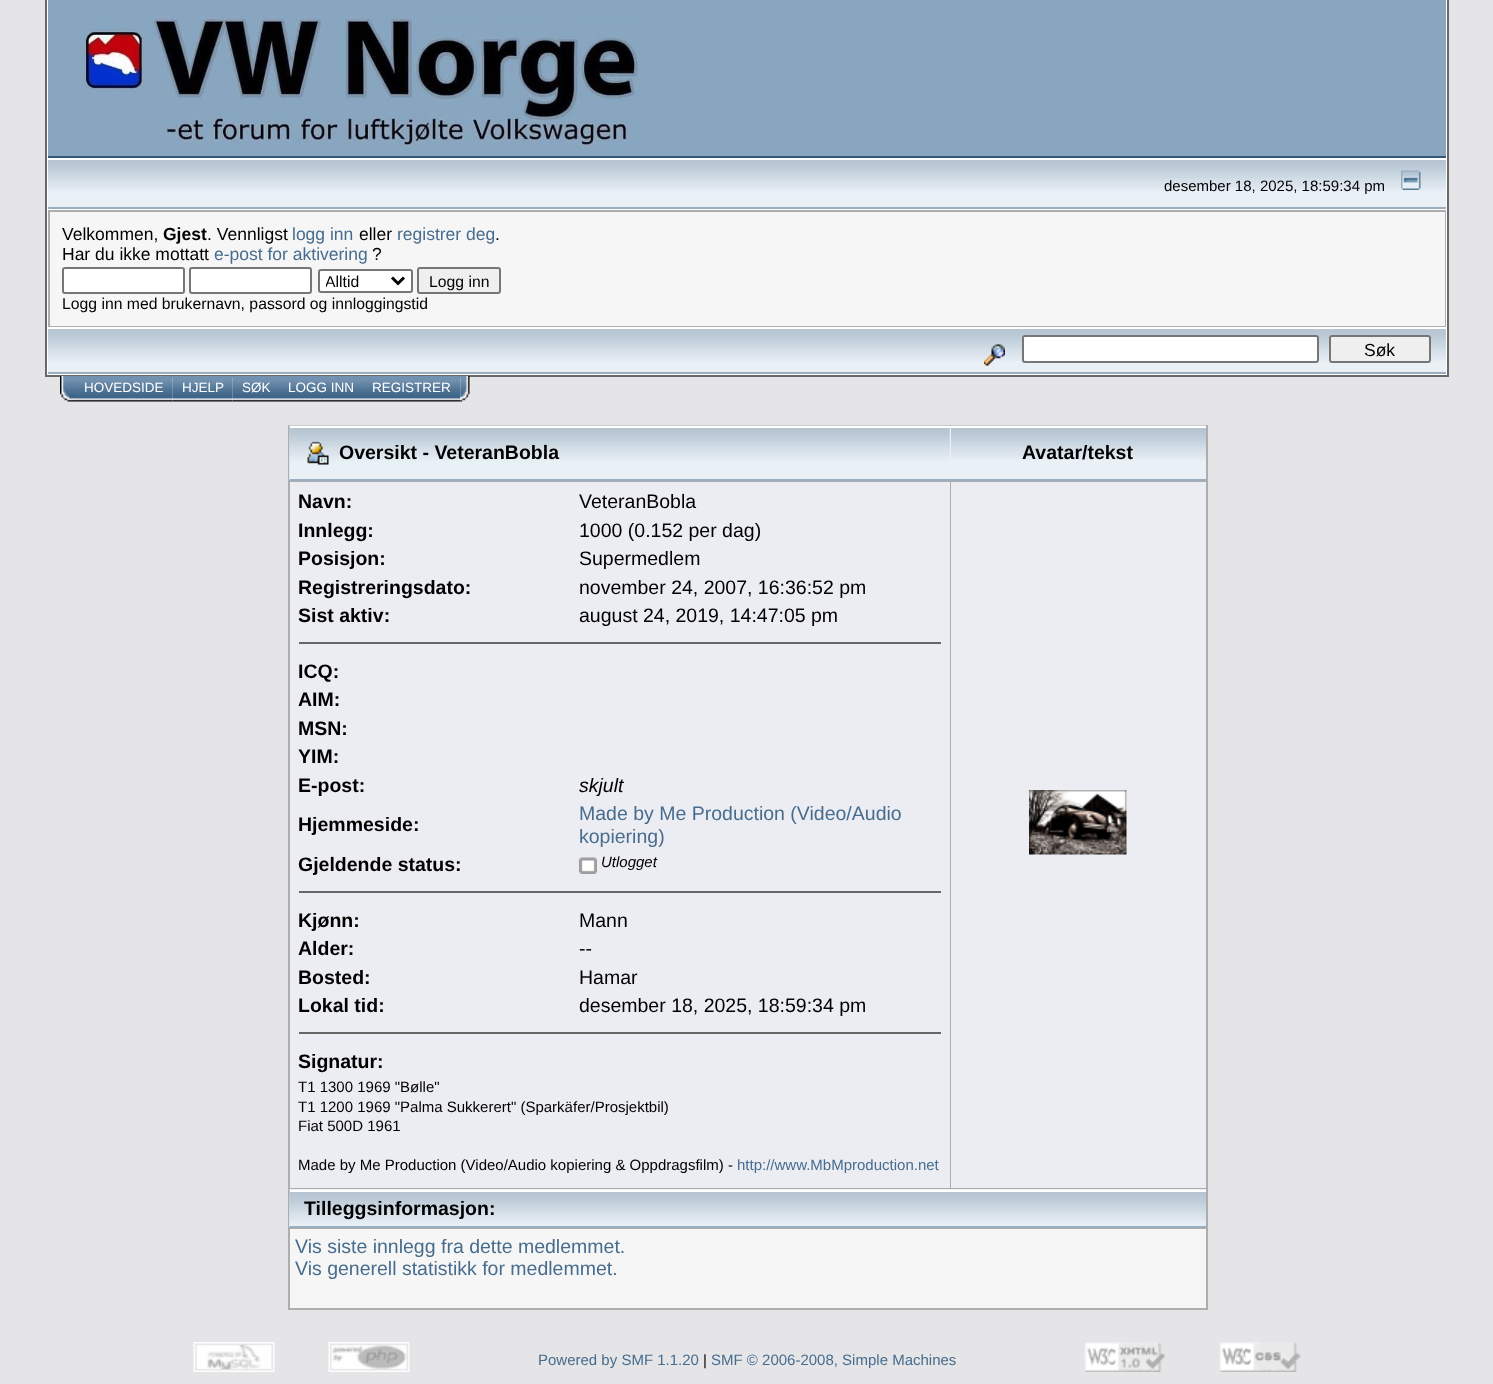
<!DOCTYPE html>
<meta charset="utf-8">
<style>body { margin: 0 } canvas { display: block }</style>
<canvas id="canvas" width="1493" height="1384"></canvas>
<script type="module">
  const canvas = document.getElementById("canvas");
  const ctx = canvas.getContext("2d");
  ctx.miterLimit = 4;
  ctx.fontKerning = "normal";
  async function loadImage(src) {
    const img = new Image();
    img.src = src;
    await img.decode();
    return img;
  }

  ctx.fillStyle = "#e5e5e8";
  ctx.fillRect(0, 0, 1493, 1384);
  ctx.fillStyle = "#ffffff";
  ctx.beginPath();
  ctx.rect(46, -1, 1402, 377);
  ctx.fill();
  ctx.strokeStyle = "#696969";
  ctx.lineWidth = 2;
  ctx.stroke();
  ctx.fillStyle = "#88a6c0";
  ctx.fillRect(48, 0, 1398, 156);
  ctx.fillStyle = "#375576";
  ctx.fillRect(48, 156, 1398, 2);
  ctx.drawImage(await loadImage("img1.png"), 82, 16, 556, 134);
  ctx.fillStyle = "#e9f0f6";
  ctx.fillRect(48, 191, 1398, 16);
  ctx.drawImage(await loadImage("img2.png"), 48, 160, 1398, 31);
  ctx.fillStyle = "#9baebf";
  ctx.fillRect(48, 207, 1398, 2);
  ctx.font = "15px Liberation Sans";
  ctx.fillStyle = "#000000";
  ctx.fillText("desember 18, 2025, 18:59:34 pm", 1164, 191);
  ctx.drawImage(await loadImage("img3.png"), 1401, 170, 20, 20);
  ctx.fillStyle = "#adadad";
  ctx.fillRect(48, 210, 1398, 117);
  ctx.fillStyle = "#f6f6f6";
  ctx.fillRect(50, 212, 1395, 114);
  ctx.font = "17.5px Liberation Sans";
  ctx.fillStyle = "#000000";
  ctx.fillText("Velkommen,", 62, 240);
  ctx.font = "bold 17.5px Liberation Sans";
  ctx.fillText("Gjest", 163, 240);
  ctx.font = "17.5px Liberation Sans";
  ctx.fillText(". Vennligst", 207, 240);
  ctx.fillStyle = "#476c8e";
  ctx.fillText("logg inn", 292, 240);
  ctx.fillStyle = "#000000";
  ctx.fillText("eller", 359, 240);
  ctx.fillStyle = "#476c8e";
  ctx.fillText("registrer deg", 397, 240);
  ctx.fillStyle = "#000000";
  ctx.fillText(".", 495, 240);
  ctx.fillText("Har du ikke mottatt", 62, 260);
  ctx.fillStyle = "#476c8e";
  ctx.fillText("e-post for aktivering", 214, 260);
  ctx.fillStyle = "#000000";
  ctx.fillText("?", 372, 260);
  ctx.fillStyle = "#ffffff";
  ctx.beginPath();
  ctx.roundRect(63, 268, 121, 25, 2);
  ctx.fill();
  ctx.strokeStyle = "#767676";
  ctx.stroke();
  ctx.beginPath();
  ctx.roundRect(190, 268, 121, 25, 2);
  ctx.fill();
  ctx.stroke();
  ctx.beginPath();
  ctx.roundRect(319, 270, 93, 22, 2);
  ctx.fill();
  ctx.stroke();
  ctx.beginPath();
  ctx.moveTo(392, 277.5);
  ctx.lineTo(398, 283.5);
  ctx.lineTo(404, 277.5);
  ctx.strokeStyle = "#000000";
  ctx.lineWidth = 3;
  ctx.stroke();
  ctx.save();
  ctx.beginPath();
  ctx.rect(326, 270, 61, 21);
  ctx.clip();
  ctx.font = "15.75px Liberation Sans";
  ctx.fillStyle = "#000000";
  ctx.fillText("Alltid", 325, 287);
  ctx.restore();
  ctx.fillStyle = "#efefef";
  ctx.beginPath();
  ctx.roundRect(418, 268, 82, 25, 2);
  ctx.fill();
  ctx.strokeStyle = "#767676";
  ctx.lineWidth = 2;
  ctx.stroke();
  ctx.font = "15.75px Liberation Sans";
  ctx.fillStyle = "#000000";
  ctx.fillText("Logg inn", 429, 287);
  ctx.fillText("Logg inn med brukernavn, passord og innloggingstid", 62, 309);
  ctx.fillStyle = "#e9f0f6";
  ctx.fillRect(48, 361, 1398, 11);
  ctx.drawImage(await loadImage("img4.png"), 48, 329, 1398, 32);
  ctx.fillStyle = "#9baebf";
  ctx.fillRect(48, 372, 1398, 2);
  ctx.drawImage(await loadImage("img5.png"), 984, 344, 21, 22);
  ctx.fillStyle = "#ffffff";
  ctx.beginPath();
  ctx.roundRect(1023, 336, 295, 26, 2);
  ctx.fill();
  ctx.stroke();
  ctx.fillStyle = "#efefef";
  ctx.beginPath();
  ctx.roundRect(1330, 336, 100, 26, 2);
  ctx.fill();
  ctx.stroke();
  ctx.font = "17.5px Liberation Sans";
  ctx.fillStyle = "#000000";
  ctx.fillText("Søk", 1364, 356);
  ctx.drawImage(await loadImage("img6.png"), 60, 376, 15, 26);
  ctx.drawImage(await loadImage("img7.png"), 75, 376, 98, 26);
  ctx.font = "13.5px Liberation Sans";
  ctx.fillStyle = "#ffffff";
  ctx.fillText("HOVEDSIDE", 84, 392);
  ctx.drawImage(await loadImage("img8.png"), 172, 376, 61, 26);
  ctx.fillText("HJELP", 182, 392);
  ctx.drawImage(await loadImage("img9.png"), 232, 376, 47, 26);
  ctx.fillText("SØK", 242, 392);
  ctx.drawImage(await loadImage("img10.png"), 279, 376, 84, 26);
  ctx.fillText("LOGG INN", 288, 392);
  ctx.drawImage(await loadImage("img11.png"), 363, 376, 98, 26);
  ctx.fillText("REGISTRER", 372, 392);
  ctx.drawImage(await loadImage("img12.png"), 460, 376, 10, 26);
  ctx.fillStyle = "#adadad";
  ctx.fillRect(288, 425, 920, 885);
  ctx.fillStyle = "#e9f0f6";
  ctx.fillRect(949, 428, 2, 51);
  ctx.fillStyle = "#ffffff";
  ctx.fillRect(950, 426, 1, 2);
  ctx.fillStyle = "#9baebf";
  ctx.fillRect(950, 479, 256, 2);
  ctx.drawImage(await loadImage("img13.png"), 289, 425, 661, 55);
  ctx.fillStyle = "#ffffff";
  ctx.fillRect(290, 426, 660, 2);
  ctx.fillStyle = "#9baebf";
  ctx.fillRect(290, 479, 660, 2);
  ctx.drawImage(await loadImage("img14.png"), 307, 441, 22, 24);
  ctx.font = "bold 19.5px Liberation Sans";
  ctx.fillStyle = "#000000";
  ctx.fillText("Oversikt - VeteranBobla", 339, 459);
  ctx.fillStyle = "#e9f0f6";
  ctx.fillRect(951, 460, 255, 19);
  ctx.drawImage(await loadImage("img15.png"), 951, 425, 255, 35);
  ctx.fillStyle = "#ffffff";
  ctx.fillRect(951, 426, 255, 2);
  ctx.fillStyle = "#000000";
  ctx.fillText("Avatar/tekst", 1022, 459);
  ctx.fillStyle = "#ecedf3";
  ctx.fillRect(290, 482, 660, 706);
  ctx.fillStyle = "#000000";
  ctx.fillText("Navn:", 298, 508);
  ctx.font = "19.5px Liberation Sans";
  ctx.fillText("VeteranBobla", 579, 508);
  ctx.font = "bold 19.5px Liberation Sans";
  ctx.fillText("Innlegg:", 298, 537);
  ctx.font = "19.5px Liberation Sans";
  ctx.fillText("1000 (0.152 per dag)", 579, 537);
  ctx.font = "bold 19.5px Liberation Sans";
  ctx.fillText("Posisjon:", 298, 565);
  ctx.font = "19.5px Liberation Sans";
  ctx.fillText("Supermedlem", 579, 565);
  ctx.font = "bold 19.5px Liberation Sans";
  ctx.fillText("Registreringsdato:", 298, 594);
  ctx.font = "19.5px Liberation Sans";
  ctx.fillText("november 24, 2007, 16:36:52 pm", 579, 594);
  ctx.font = "bold 19.5px Liberation Sans";
  ctx.fillText("Sist aktiv:", 298, 622);
  ctx.font = "19.5px Liberation Sans";
  ctx.fillText("august 24, 2019, 14:47:05 pm", 579, 622);
  ctx.fillStyle = "#666666";
  ctx.fillRect(299, 642, 642, 2);
  ctx.font = "bold 19.5px Liberation Sans";
  ctx.fillStyle = "#000000";
  ctx.fillText("ICQ:", 298, 678);
  ctx.fillText("AIM:", 298, 706);
  ctx.fillText("MSN:", 298, 735);
  ctx.fillText("YIM:", 298, 763);
  ctx.fillText("E-post:", 298, 792);
  ctx.font = "italic 19.5px Liberation Sans";
  ctx.fillText("skjult", 579, 792);
  ctx.font = "bold 19.5px Liberation Sans";
  ctx.fillText("Hjemmeside:", 298, 831);
  ctx.font = "19.5px Liberation Sans";
  ctx.fillStyle = "#476c8e";
  ctx.fillText("Made by Me Production (Video/Audio", 579, 820);
  ctx.fillText("kopiering)", 579, 843);
  ctx.font = "bold 19.5px Liberation Sans";
  ctx.fillStyle = "#000000";
  ctx.fillText("Gjeldende status:", 298, 871);
  ctx.drawImage(await loadImage("img16.png"), 579, 857, 18, 17);
  ctx.font = "italic 15px Liberation Sans";
  ctx.fillText("Utlogget", 601, 867);
  ctx.fillStyle = "#666666";
  ctx.fillRect(299, 891, 642, 2);
  ctx.font = "bold 19.5px Liberation Sans";
  ctx.fillStyle = "#000000";
  ctx.fillText("Kjønn:", 298, 927);
  ctx.font = "19.5px Liberation Sans";
  ctx.fillText("Mann", 579, 927);
  ctx.font = "bold 19.5px Liberation Sans";
  ctx.fillText("Alder:", 298, 955);
  ctx.font = "19.5px Liberation Sans";
  ctx.fillText("--", 579, 955);
  ctx.font = "bold 19.5px Liberation Sans";
  ctx.fillText("Bosted:", 298, 984);
  ctx.font = "19.5px Liberation Sans";
  ctx.fillText("Hamar", 579, 984);
  ctx.font = "bold 19.5px Liberation Sans";
  ctx.fillText("Lokal tid:", 298, 1012);
  ctx.font = "19.5px Liberation Sans";
  ctx.fillText("desember 18, 2025, 18:59:34 pm", 579, 1012);
  ctx.fillStyle = "#666666";
  ctx.fillRect(299, 1032, 642, 2);
  ctx.font = "bold 19.5px Liberation Sans";
  ctx.fillStyle = "#000000";
  ctx.fillText("Signatur:", 298, 1068);
  ctx.font = "15px Liberation Sans";
  ctx.fillText("T1 1300 1969 \"Bølle\"", 298, 1092);
  ctx.fillText("T1 1200 1969 \"Palma Sukkerert\" (Sparkäfer/Prosjektbil)", 298, 1112);
  ctx.fillText("Fiat 500D 1961", 298, 1131);
  ctx.fillText("Made by Me Production (Video/Audio kopiering & Oppdragsfilm) -", 298, 1170);
  ctx.fillStyle = "#476c8e";
  ctx.fillText("http://www.MbMproduction.net", 737, 1170);
  ctx.fillStyle = "#ecedf3";
  ctx.fillRect(951, 482, 255, 706);
  ctx.drawImage(await loadImage("img17.png"), 1029, 790, 98, 65);
  ctx.drawImage(await loadImage("img18.png"), 289, 1189, 917, 38);
  ctx.fillStyle = "#ffffff";
  ctx.fillRect(290, 1190, 916, 2);
  ctx.fillStyle = "#9baebf";
  ctx.fillRect(290, 1226, 916, 2);
  ctx.font = "bold 19.5px Liberation Sans";
  ctx.fillStyle = "#000000";
  ctx.fillText("Tilleggsinformasjon:", 304, 1215);
  ctx.fillStyle = "#f6f6f6";
  ctx.fillRect(290, 1229, 916, 79);
  ctx.font = "19.5px Liberation Sans";
  ctx.fillStyle = "#476c8e";
  ctx.fillText("Vis siste innlegg fra dette medlemmet.", 295, 1253);
  ctx.fillText("Vis generell statistikk for medlemmet.", 295, 1275);
  ctx.drawImage(await loadImage("img19.png"), 193, 1342, 82, 30);
  ctx.drawImage(await loadImage("img20.png"), 328, 1342, 82, 30);
  ctx.font = "15px Liberation Sans";
  ctx.fillText("Powered by SMF 1.1.20", 538, 1365);
  ctx.fillStyle = "#000000";
  ctx.fillText("|", 703, 1365);
  ctx.fillStyle = "#476c8e";
  ctx.fillText("SMF © 2006-2008, Simple Machines", 711, 1365);
  ctx.drawImage(await loadImage("img21.png"), 1084, 1342, 82, 30);
  ctx.drawImage(await loadImage("img22.png"), 1219, 1342, 82, 30);
</script>
